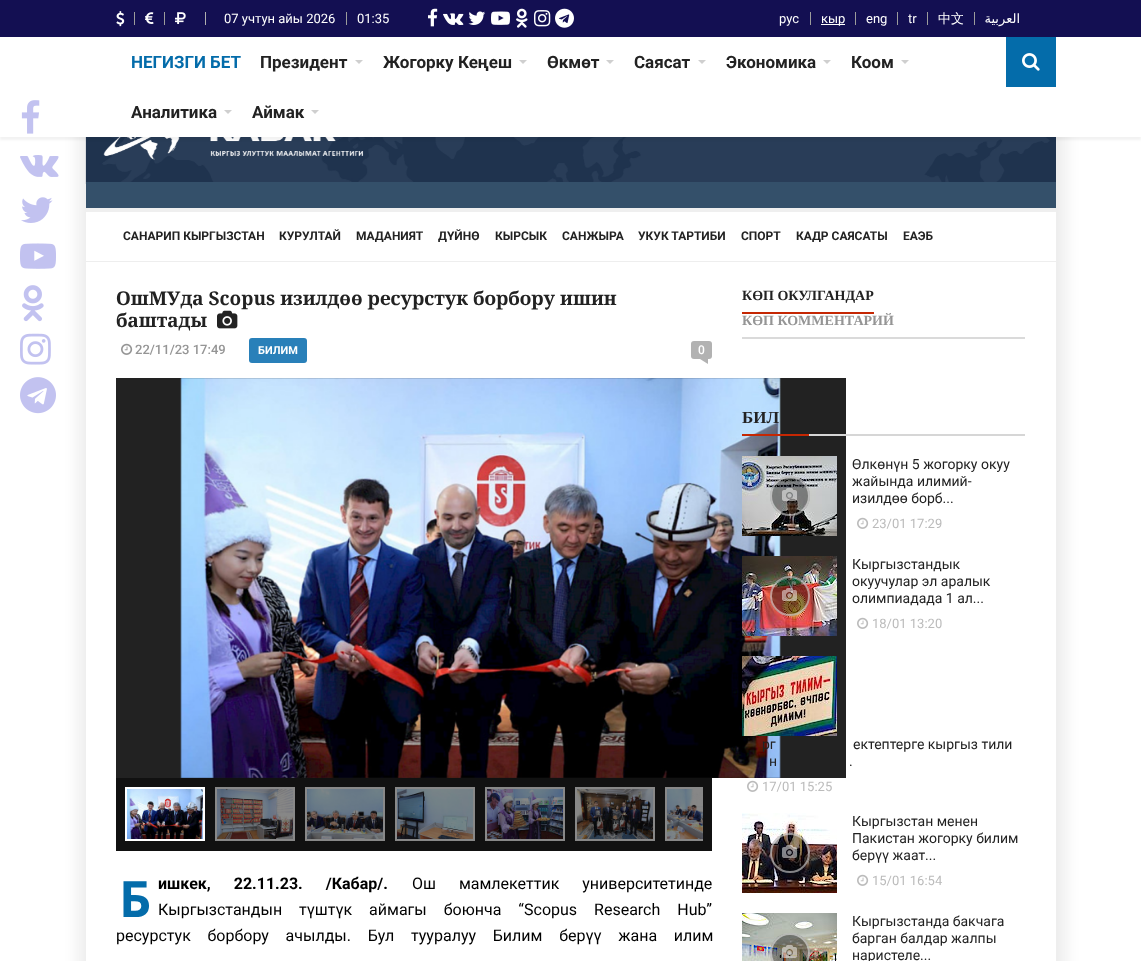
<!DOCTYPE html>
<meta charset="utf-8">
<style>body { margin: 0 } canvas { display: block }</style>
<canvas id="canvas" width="1141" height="961"></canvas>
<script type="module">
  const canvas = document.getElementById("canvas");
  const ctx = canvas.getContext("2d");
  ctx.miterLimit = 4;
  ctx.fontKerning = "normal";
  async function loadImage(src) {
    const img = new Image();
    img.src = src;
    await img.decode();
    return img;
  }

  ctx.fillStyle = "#ffffff";
  ctx.fillRect(0, 0, 1141, 961);
  ctx.save();
  ctx.beginPath();
  ctx.moveTo(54, 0);
  ctx.lineTo(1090, 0);
  ctx.lineTo(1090, 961);
  ctx.lineTo(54, 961);
  ctx.closePath();
  ctx.moveTo(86, 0);
  ctx.lineTo(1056, 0);
  ctx.lineTo(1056, 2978);
  ctx.lineTo(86, 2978);
  ctx.closePath();
  ctx.clip("evenodd");
  ctx.fillStyle = "rgba(0, 0, 0, 0.08)";
  ctx.filter = "blur(8px)";
  ctx.beginPath();
  ctx.rect(79, -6, 986, 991);
  ctx.fill();
  ctx.filter = "none";
  ctx.restore();
  ctx.fillStyle = "#130f52";
  ctx.fillRect(0, 0, 1141, 37);
  ctx.drawImage(await loadImage("img19.png"), 85, 137, 971, 47);
  ctx.fillStyle = "rgba(0, 0, 0, 0.05)";
  ctx.filter = "blur(1px)";
  ctx.beginPath();
  ctx.rect(0, 40, 1141, 100);
  ctx.fill();
  ctx.filter = "none";
  ctx.fillStyle = "#ffffff";
  ctx.fillRect(0, 37, 1141, 100);
  ctx.drawImage(await loadImage("img1.png"), 21, 100, 19, 34);
  ctx.drawImage(await loadImage("img2.png"), 20, 155, 39, 22);
  ctx.drawImage(await loadImage("img3.png"), 21, 197, 32, 26);
  ctx.drawImage(await loadImage("img4.png"), 20, 243, 36, 26);
  ctx.drawImage(await loadImage("img5.png"), 22, 285, 22, 37);
  ctx.drawImage(await loadImage("img6.png"), 20, 333, 31, 32);
  ctx.drawImage(await loadImage("img7.png"), 20, 377, 36, 37);
  ctx.fillStyle = "#9c9c9c";
  ctx.fillRect(134, 12, 1, 13);
  ctx.drawImage(await loadImage("img8.png"), 116, 11, 9, 16);
  ctx.fillRect(164, 12, 1, 13);
  ctx.drawImage(await loadImage("img9.png"), 145, 12, 9, 12);
  ctx.drawImage(await loadImage("img10.png"), 175, 12, 11, 12);
  ctx.fillStyle = "#afafaf";
  ctx.fillRect(205, 12, 1, 13);
  ctx.fillStyle = "#9c9c9c";
  ctx.fillRect(346, 12, 1, 13);
  ctx.font = "13px Roboto";
  ctx.fillStyle = "#ffffff";
  ctx.fillText("07 учтун айы 2026", 224, 23);
  ctx.fillText("01:35", 357, 23);
  ctx.drawImage(await loadImage("img11.png"), 428, 8, 10, 19);
  ctx.drawImage(await loadImage("img12.png"), 443, 13, 21, 12);
  ctx.drawImage(await loadImage("img13.png"), 468, 11, 17, 14);
  ctx.drawImage(await loadImage("img14.png"), 491, 11, 19, 14);
  ctx.drawImage(await loadImage("img15.png"), 516, 8, 12, 20);
  ctx.drawImage(await loadImage("img16.png"), 534, 10, 17, 17);
  ctx.drawImage(await loadImage("img17.png"), 555, 8, 19, 20);
  ctx.fillStyle = "#9c9c9c";
  ctx.fillRect(810, 12, 1, 13);
  ctx.fillStyle = "#ffffff";
  ctx.fillText("рус", 779, 23);
  ctx.fillStyle = "#9c9c9c";
  ctx.fillRect(855, 12, 1, 13);
  ctx.fillStyle = "#ffffff";
  ctx.fillRect(821, 24, 24, 1);
  ctx.fillText("кыр", 821, 23);
  ctx.fillStyle = "#9c9c9c";
  ctx.fillRect(897, 12, 1, 13);
  ctx.fillStyle = "#ffffff";
  ctx.fillText("eng", 866, 23);
  ctx.fillStyle = "#9c9c9c";
  ctx.fillRect(927, 12, 1, 13);
  ctx.fillStyle = "#ffffff";
  ctx.fillText("tr", 908, 23);
  ctx.fillStyle = "#9c9c9c";
  ctx.fillRect(974, 12, 1, 13);
  ctx.font = "500 13px WenQuanYi Zen Hei";
  ctx.fillStyle = "#ffffff";
  ctx.fillText("中文", 938, 23);
  ctx.direction = "rtl";
  ctx.font = "13px DejaVu Sans";
  ctx.fillText("العربية", 1020, 23);
  ctx.direction = "ltr";
  ctx.font = "bold 17px Roboto";
  ctx.fillStyle = "#046caa";
  ctx.fillText("НЕГИЗГИ БЕТ", 131, 68);
  ctx.fillStyle = "#222222";
  ctx.fillText("Президент", 260, 68);
  ctx.fillStyle = "#cfcfcf";
  ctx.beginPath();
  ctx.moveTo(355, 60);
  ctx.lineTo(363, 60);
  ctx.lineTo(359, 64);
  ctx.closePath();
  ctx.fill();
  ctx.fillStyle = "#222222";
  ctx.fillText("Жогорку Кеңеш", 383, 68);
  ctx.fillStyle = "#cfcfcf";
  ctx.beginPath();
  ctx.moveTo(519, 60);
  ctx.lineTo(527, 60);
  ctx.lineTo(523, 64);
  ctx.closePath();
  ctx.fill();
  ctx.fillStyle = "#222222";
  ctx.fillText("Өкмөт", 547, 68);
  ctx.fillStyle = "#cfcfcf";
  ctx.beginPath();
  ctx.moveTo(606, 60);
  ctx.lineTo(614, 60);
  ctx.lineTo(610, 64);
  ctx.closePath();
  ctx.fill();
  ctx.fillStyle = "#222222";
  ctx.fillText("Саясат", 634, 68);
  ctx.fillStyle = "#cfcfcf";
  ctx.beginPath();
  ctx.moveTo(698, 60);
  ctx.lineTo(706, 60);
  ctx.lineTo(702, 64);
  ctx.closePath();
  ctx.fill();
  ctx.fillStyle = "#222222";
  ctx.fillText("Экономика", 726, 68);
  ctx.fillStyle = "#cfcfcf";
  ctx.beginPath();
  ctx.moveTo(823, 60);
  ctx.lineTo(831, 60);
  ctx.lineTo(827, 64);
  ctx.closePath();
  ctx.fill();
  ctx.fillStyle = "#222222";
  ctx.fillText("Коом", 851, 68);
  ctx.fillStyle = "#cfcfcf";
  ctx.beginPath();
  ctx.moveTo(901, 60);
  ctx.lineTo(909, 60);
  ctx.lineTo(905, 64);
  ctx.closePath();
  ctx.fill();
  ctx.fillStyle = "#222222";
  ctx.fillText("Аналитика", 131, 118);
  ctx.fillStyle = "#cfcfcf";
  ctx.beginPath();
  ctx.moveTo(224, 110);
  ctx.lineTo(232, 110);
  ctx.lineTo(228, 114);
  ctx.closePath();
  ctx.fill();
  ctx.fillStyle = "#222222";
  ctx.fillText("Аймак", 252, 118);
  ctx.fillStyle = "#cfcfcf";
  ctx.beginPath();
  ctx.moveTo(311, 110);
  ctx.lineTo(319, 110);
  ctx.lineTo(315, 114);
  ctx.closePath();
  ctx.fill();
  ctx.fillStyle = "#046caa";
  ctx.fillRect(1006, 37, 50, 50);
  ctx.drawImage(await loadImage("img18.png"), 1022, 53, 18, 18);
  ctx.fillStyle = "#34506a";
  ctx.fillRect(86, 182, 970, 26);
  ctx.fillStyle = "#efefef";
  ctx.fillRect(86, 208, 970, 4);
  ctx.font = "bold 12px Roboto";
  ctx.fillStyle = "#222222";
  ctx.fillText("САНАРИП КЫРГЫЗСТАН", 123, 240);
  ctx.fillText("КУРУЛТАЙ", 279, 240);
  ctx.fillText("МАДАНИЯТ", 356, 240);
  ctx.fillText("ДҮЙНӨ", 438, 240);
  ctx.fillText("КЫРСЫК", 495, 240);
  ctx.fillText("САНЖЫРА", 562, 240);
  ctx.fillText("УКУК ТАРТИБИ", 638, 240);
  ctx.fillText("СПОРТ", 741, 240);
  ctx.fillText("КАДР САЯСАТЫ", 796, 240);
  ctx.fillText("ЕАЭБ", 903, 240);
  ctx.fillStyle = "#eeeeee";
  ctx.fillRect(86, 261, 970, 1);
  ctx.font = "bold 19px Noto Serif";
  ctx.fillStyle = "#222222";
  ctx.fillText("ОшМУда Scopus изилдөө ресурстук борбору ишин", 116, 305);
  ctx.fillText("баштады", 116, 327);
  ctx.drawImage(await loadImage("img20.png"), 217, 310, 21, 19);
  ctx.drawImage(await loadImage("img21.png"), 121, 343, 12, 12);
  ctx.font = "500 13px Roboto";
  ctx.fillStyle = "#959595";
  ctx.fillText("22/11/23 17:49", 135, 354);
  ctx.fillStyle = "#2980b9";
  ctx.beginPath();
  ctx.roundRect(249, 338, 58, 25, 3);
  ctx.fill();
  ctx.font = "bold 11px Roboto";
  ctx.fillStyle = "#ffffff";
  ctx.fillText("БИЛИМ", 258, 354);
  ctx.fillStyle = "#b2b2b2";
  ctx.beginPath();
  ctx.roundRect(691, 341, 21, 18, 3);
  ctx.fill();
  ctx.font = "500 12px Roboto";
  ctx.fillStyle = "#ffffff";
  ctx.fillText("0", 698, 354);
  ctx.fillStyle = "#b2b2b2";
  ctx.beginPath();
  ctx.moveTo(708, 359);
  ctx.lineTo(708, 364);
  ctx.lineTo(700, 359);
  ctx.closePath();
  ctx.fill();
  ctx.fillStyle = "#111111";
  ctx.fillRect(116, 778, 596, 73);
  ctx.fillStyle = "#222222";
  ctx.fillRect(116, 378, 730, 400);
  ctx.drawImage(await loadImage("img22.png"), 180, 378, 601, 400);
  ctx.strokeStyle = "#ffffff";
  ctx.lineWidth = 2;
  ctx.strokeRect(126, 788, 78, 52);
  ctx.drawImage(await loadImage("img23.png"), 127, 789, 76, 50);
  ctx.strokeStyle = "#888888";
  ctx.strokeRect(216, 788, 78, 52);
  ctx.drawImage(await loadImage("img24.png"), 217, 789, 76, 50);
  ctx.strokeRect(306, 788, 78, 52);
  ctx.drawImage(await loadImage("img25.png"), 307, 789, 76, 50);
  ctx.strokeRect(396, 788, 78, 52);
  ctx.drawImage(await loadImage("img26.png"), 397, 789, 76, 50);
  ctx.strokeRect(486, 788, 78, 52);
  ctx.drawImage(await loadImage("img27.png"), 487, 789, 76, 50);
  ctx.strokeRect(576, 788, 78, 52);
  ctx.drawImage(await loadImage("img28.png"), 577, 789, 76, 50);
  ctx.save();
  ctx.beginPath();
  ctx.rect(125, 787, 578, 64);
  ctx.clip();
  ctx.strokeRect(666, 788, 78, 52);
  ctx.restore();
  ctx.drawImage(await loadImage("img29.png"), 667, 789, 36, 50);
  ctx.font = "bold 50px Noto Sans";
  ctx.fillStyle = "#046caa";
  ctx.fillText("Б", 119, 917);
  ctx.wordSpacing = "19px";
  ctx.font = "bold 16px Roboto";
  ctx.fillStyle = "#000000";
  ctx.fillText("ишкек, 22.11.23. /Кабар/.", 158, 889);
  ctx.font = "16px Roboto";
  ctx.fillText("Ош мамлекеттик университетинде", 412, 889);
  ctx.wordSpacing = "13px";
  ctx.fillText("Кыргызстандын түштүк аймагы боюнча “Scopus Research Hub”", 158, 915);
  ctx.wordSpacing = "12.75px";
  ctx.fillText("ресурстук борбору ачылды. Бул тууралуу Билим берүү жана илим", 116, 941);
  ctx.fillStyle = "#dadada";
  ctx.fillRect(742, 337, 283, 2);
  ctx.fillStyle = "#c52703";
  ctx.fillRect(742, 312, 132, 2);
  ctx.wordSpacing = "0px";
  ctx.font = "bold 14px Liberation Serif";
  ctx.fillStyle = "#222222";
  ctx.fillText("КӨП ОКУЛГАНДАР", 742, 300);
  ctx.fillStyle = "#959595";
  ctx.fillText("КӨП КОММЕНТАРИЙ", 742, 325);
  ctx.fillStyle = "#d6d6d6";
  ctx.fillRect(809, 434, 216, 2);
  ctx.fillStyle = "#c52703";
  ctx.fillRect(742, 434, 67, 2);
  ctx.font = "bold 17px Liberation Serif";
  ctx.fillStyle = "#222222";
  ctx.fillText("БИЛ", 742, 423);
  ctx.drawImage(await loadImage("img30.png"), 742, 456, 95, 80);
  ctx.fillStyle = "rgba(0, 0, 0, 0.4)";
  ctx.beginPath();
  ctx.arc(790, 496, 20, 0, Math.PI * 2);
  ctx.fill();
  ctx.beginPath();
  ctx.arc(790, 496, 19, 0, Math.PI * 2);
  ctx.strokeStyle = "rgba(255, 255, 255, 0.5)";
  ctx.stroke();
  ctx.drawImage(await loadImage("img31.png"), 782, 488, 15, 13);
  ctx.font = "14px Roboto";
  ctx.fillStyle = "#222222";
  ctx.fillText("Өлкөнүн 5 жогорку окуу", 852, 469);
  ctx.fillText("жайында илимий-", 852, 486);
  ctx.fillText("изилдөө борб...", 852, 503);
  ctx.drawImage(await loadImage("img32.png"), 857, 517, 12, 12);
  ctx.font = "13px Roboto";
  ctx.fillStyle = "#bbbbbb";
  ctx.fillText("23/01 17:29", 872, 528);
  ctx.drawImage(await loadImage("img33.png"), 742, 556, 95, 80);
  ctx.fillStyle = "rgba(0, 0, 0, 0.4)";
  ctx.beginPath();
  ctx.arc(790, 596, 20, 0, Math.PI * 2);
  ctx.fill();
  ctx.beginPath();
  ctx.arc(790, 596, 19, 0, Math.PI * 2);
  ctx.stroke();
  ctx.drawImage(await loadImage("img34.png"), 782, 588, 15, 13);
  ctx.font = "14px Roboto";
  ctx.fillStyle = "#222222";
  ctx.fillText("Кыргызстандык", 852, 569);
  ctx.fillText("окуучулар эл аралык", 852, 586);
  ctx.fillText("олимпиадада 1 ал...", 852, 603);
  ctx.drawImage(await loadImage("img32.png"), 857, 617, 12, 12);
  ctx.font = "13px Roboto";
  ctx.fillStyle = "#bbbbbb";
  ctx.fillText("18/01 13:20", 872, 628);
  ctx.drawImage(await loadImage("img35.png"), 742, 656, 95, 80);
  ctx.font = "14px Roboto";
  ctx.fillStyle = "#222222";
  ctx.fillText("рг", 762, 749);
  ctx.fillText("ектептерге кыргыз тили", 853, 749);
  ctx.fillText("н", 769, 766);
  ctx.fillText(".", 849, 766);
  ctx.drawImage(await loadImage("img32.png"), 747, 780, 12, 12);
  ctx.font = "13px Roboto";
  ctx.fillStyle = "#bbbbbb";
  ctx.fillText("17/01 15:25", 762, 791);
  ctx.drawImage(await loadImage("img36.png"), 742, 813, 95, 80);
  ctx.fillStyle = "rgba(0, 0, 0, 0.4)";
  ctx.beginPath();
  ctx.arc(790, 853, 20, 0, Math.PI * 2);
  ctx.fill();
  ctx.beginPath();
  ctx.arc(790, 853, 19, 0, Math.PI * 2);
  ctx.stroke();
  ctx.drawImage(await loadImage("img37.png"), 782, 845, 15, 13);
  ctx.font = "14px Roboto";
  ctx.fillStyle = "#222222";
  ctx.fillText("Кыргызстан менен", 852, 826);
  ctx.fillText("Пакистан жогорку билим", 852, 843);
  ctx.fillText("берүү жаат...", 852, 860);
  ctx.drawImage(await loadImage("img32.png"), 857, 874, 12, 12);
  ctx.font = "13px Roboto";
  ctx.fillStyle = "#bbbbbb";
  ctx.fillText("15/01 16:54", 872, 885);
  ctx.drawImage(await loadImage("img38.png"), 742, 913, 95, 48);
  ctx.fillStyle = "rgba(0, 0, 0, 0.4)";
  ctx.beginPath();
  ctx.arc(790, 953, 20, 0, Math.PI * 2);
  ctx.fill();
  ctx.beginPath();
  ctx.arc(790, 953, 19, 0, Math.PI * 2);
  ctx.stroke();
  ctx.drawImage(await loadImage("img39.png"), 782, 945, 15, 13);
  ctx.font = "14px Roboto";
  ctx.fillStyle = "#222222";
  ctx.fillText("Кыргызстанда бакчага", 852, 926);
  ctx.fillText("барган балдар жалпы", 852, 943);
  ctx.fillText("наристеле...", 852, 960);
</script>
